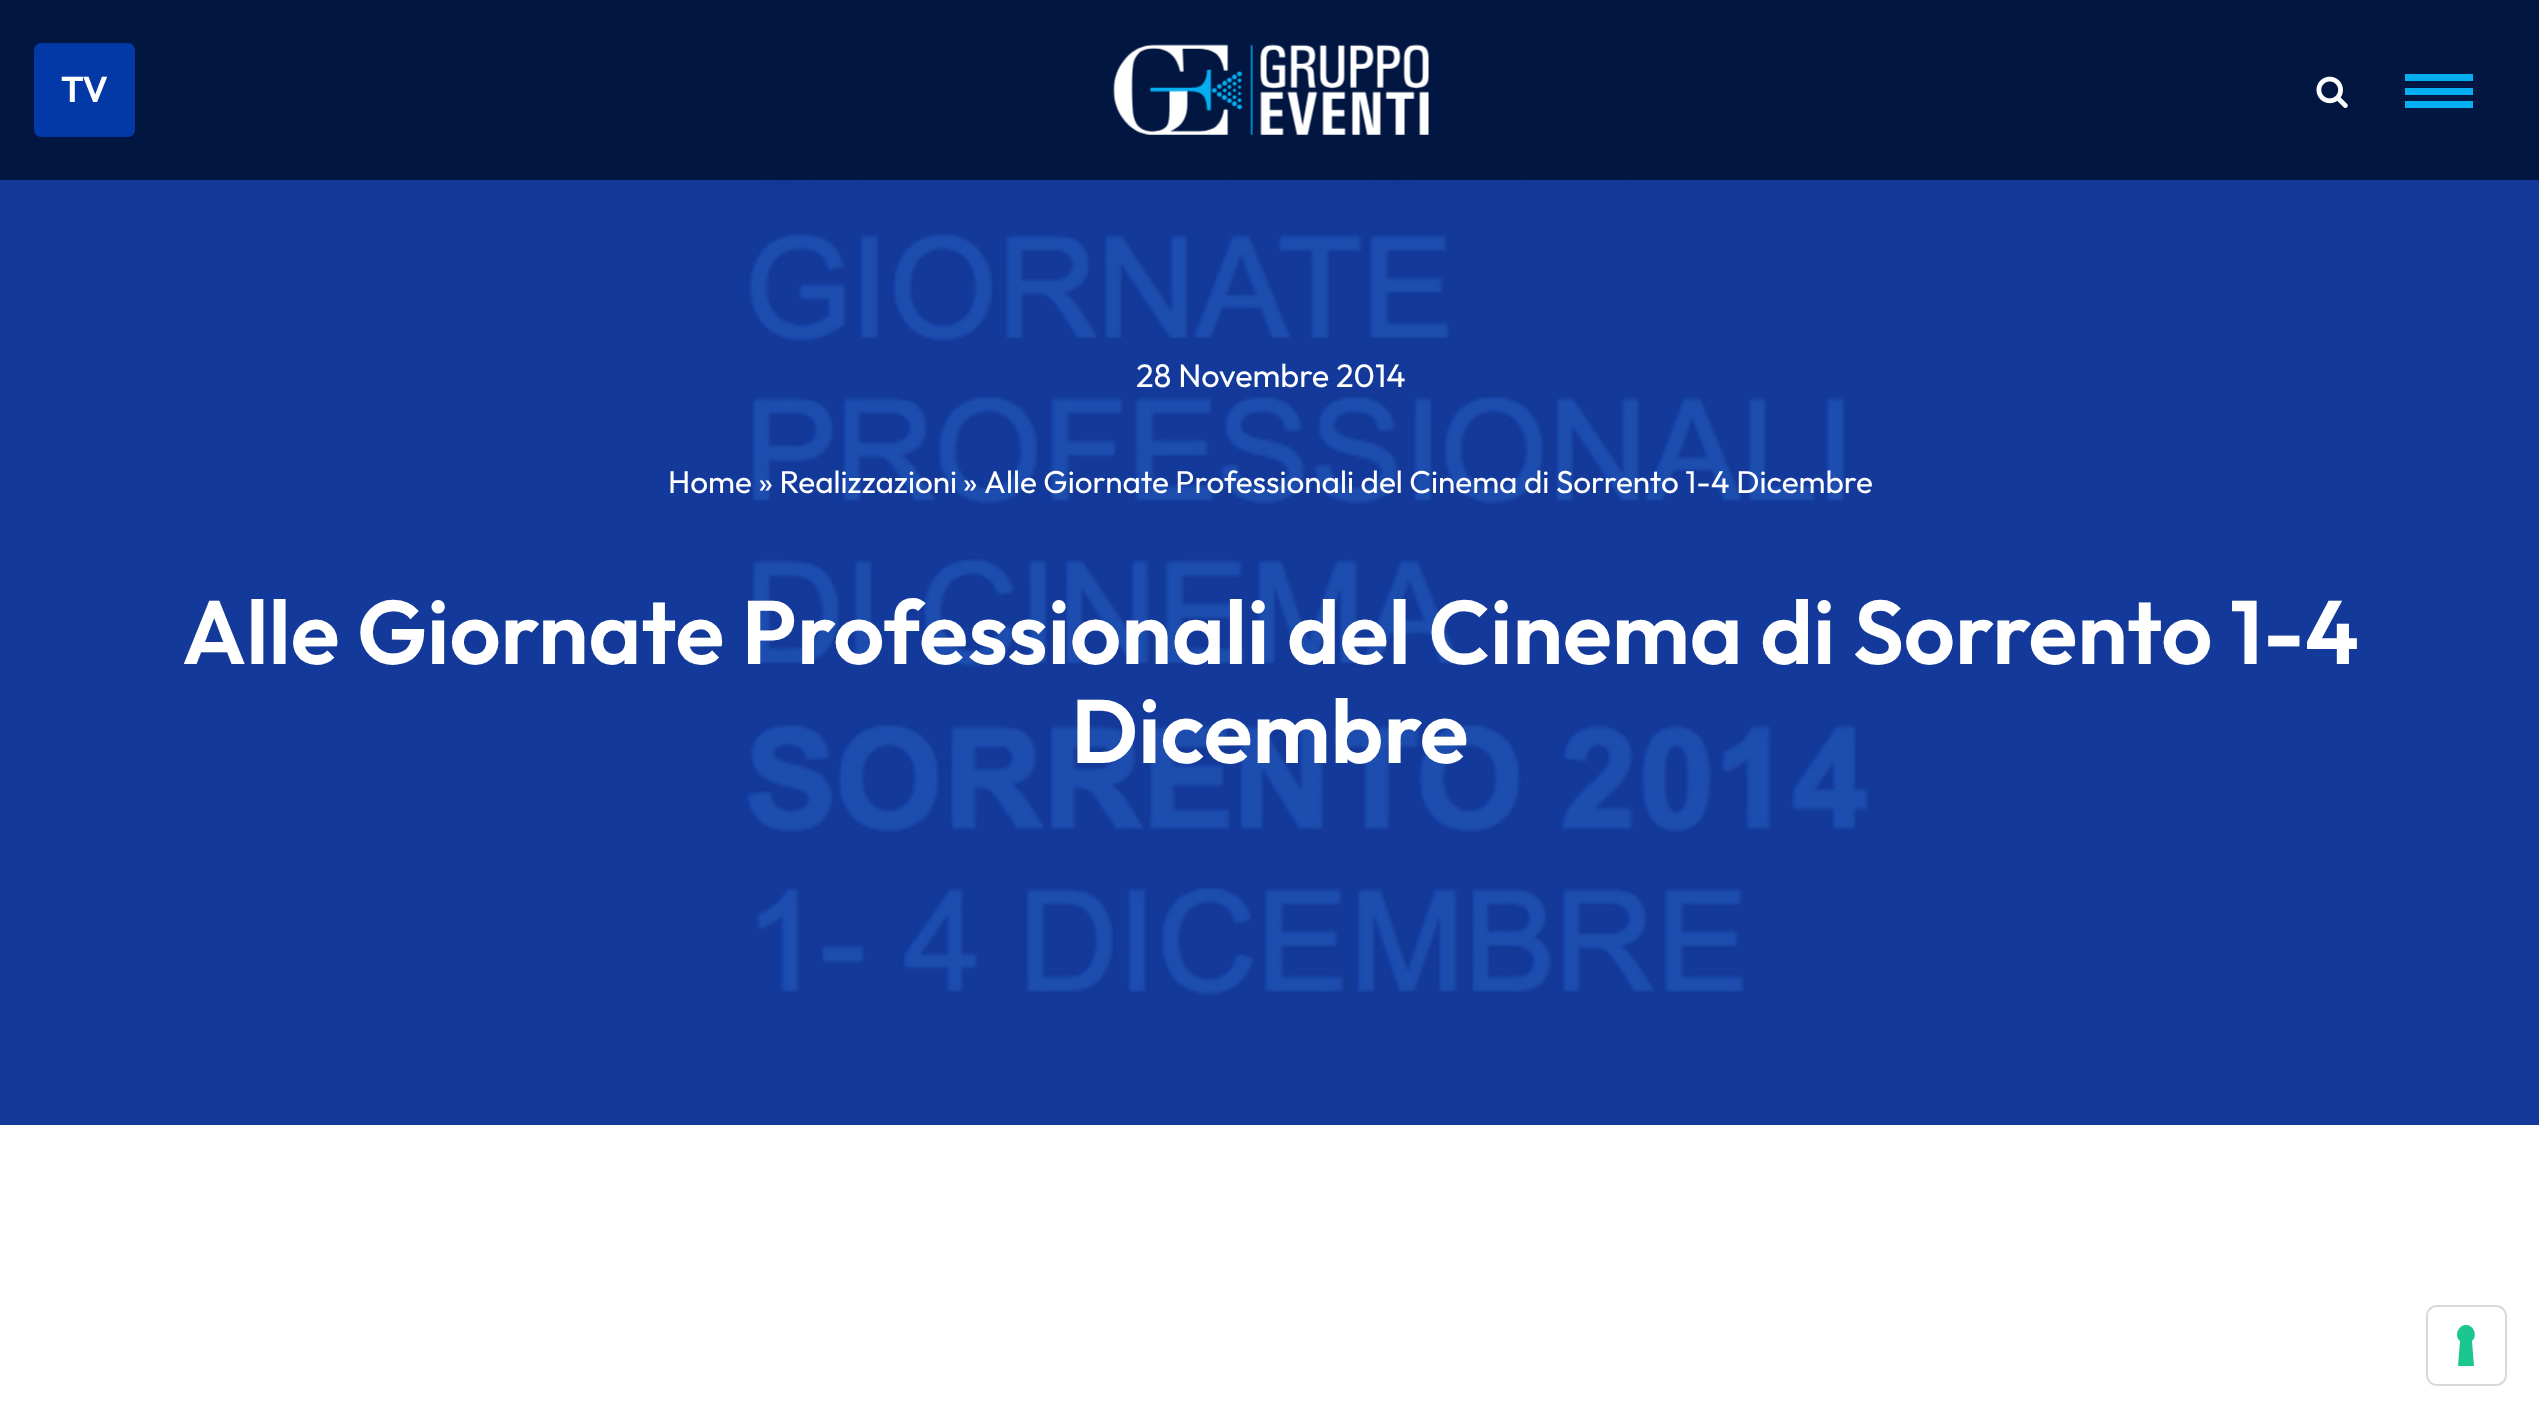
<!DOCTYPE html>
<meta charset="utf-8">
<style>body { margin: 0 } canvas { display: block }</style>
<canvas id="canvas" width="2539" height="1419"></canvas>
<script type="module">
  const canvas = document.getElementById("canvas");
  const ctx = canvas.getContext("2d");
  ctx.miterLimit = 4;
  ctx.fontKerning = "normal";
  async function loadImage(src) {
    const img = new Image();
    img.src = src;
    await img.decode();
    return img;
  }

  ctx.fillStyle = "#ffffff";
  ctx.fillRect(0, 0, 2539, 1419);
  ctx.drawImage(await loadImage("img3.png"), 0, 180, 2539, 945);
  ctx.fillStyle = "rgba(0, 0, 0, 0.1)";
  ctx.filter = "blur(3.5px)";
  ctx.beginPath();
  ctx.rect(0, -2, 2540, 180);
  ctx.fill();
  ctx.filter = "none";
  ctx.fillStyle = "#011640";
  ctx.fillRect(0, 0, 2539, 180);
  ctx.fillStyle = "#0339a6";
  ctx.beginPath();
  ctx.roundRect(34, 43, 101, 94, 7);
  ctx.fill();
  ctx.font = "600 36px Outfit";
  ctx.fillStyle = "#ffffff";
  ctx.fillText("TV", 61, 102);
  ctx.drawImage(await loadImage("img1.png"), 1113, 44, 316, 91);
  ctx.drawImage(await loadImage("img2.png"), 2316, 76, 32, 32);
  ctx.fillStyle = "#05aff2";
  ctx.fillRect(2405, 74, 68, 7);
  ctx.fillRect(2405, 88, 68, 7);
  ctx.fillRect(2405, 101, 68, 7);
  ctx.font = "32.5px Outfit";
  ctx.fillStyle = "#ffffff";
  ctx.fillText("28 Novembre 2014", 1136, 387);
  ctx.font = "31.5px Outfit";
  ctx.fillText("Home » Realizzazioni", 668, 493);
  ctx.fillText("»", 963, 493);
  ctx.fillText("Alle Giornate Professionali del Cinema di Sorrento 1-4 Dicembre", 984, 493);
  ctx.font = "600 90px Outfit";
  ctx.fillText("Alle Giornate Professionali del Cinema di Sorrento 1-4", 182, 664);
  ctx.fillText("Dicembre", 1071, 763);
  ctx.beginPath();
  ctx.roundRect(2427, 1306, 79, 79, 10);
  ctx.strokeStyle = "#d9d9d9";
  ctx.lineWidth = 2;
  ctx.stroke();
  ctx.beginPath();
  ctx.roundRect(2428, 1307, 76, 77, 9);
  ctx.fill();
  ctx.fillStyle = "#1cc691";
  ctx.beginPath();
  ctx.moveTo(2466, 1325);
  ctx.bezierCurveTo(2474, 1325, 2478, 1336, 2472, 1341);
  ctx.lineTo(2474, 1366);
  ctx.lineTo(2458, 1366);
  ctx.lineTo(2460, 1341);
  ctx.bezierCurveTo(2454, 1336, 2458, 1325, 2466, 1325);
  ctx.closePath();
  ctx.fill("evenodd");
</script>
